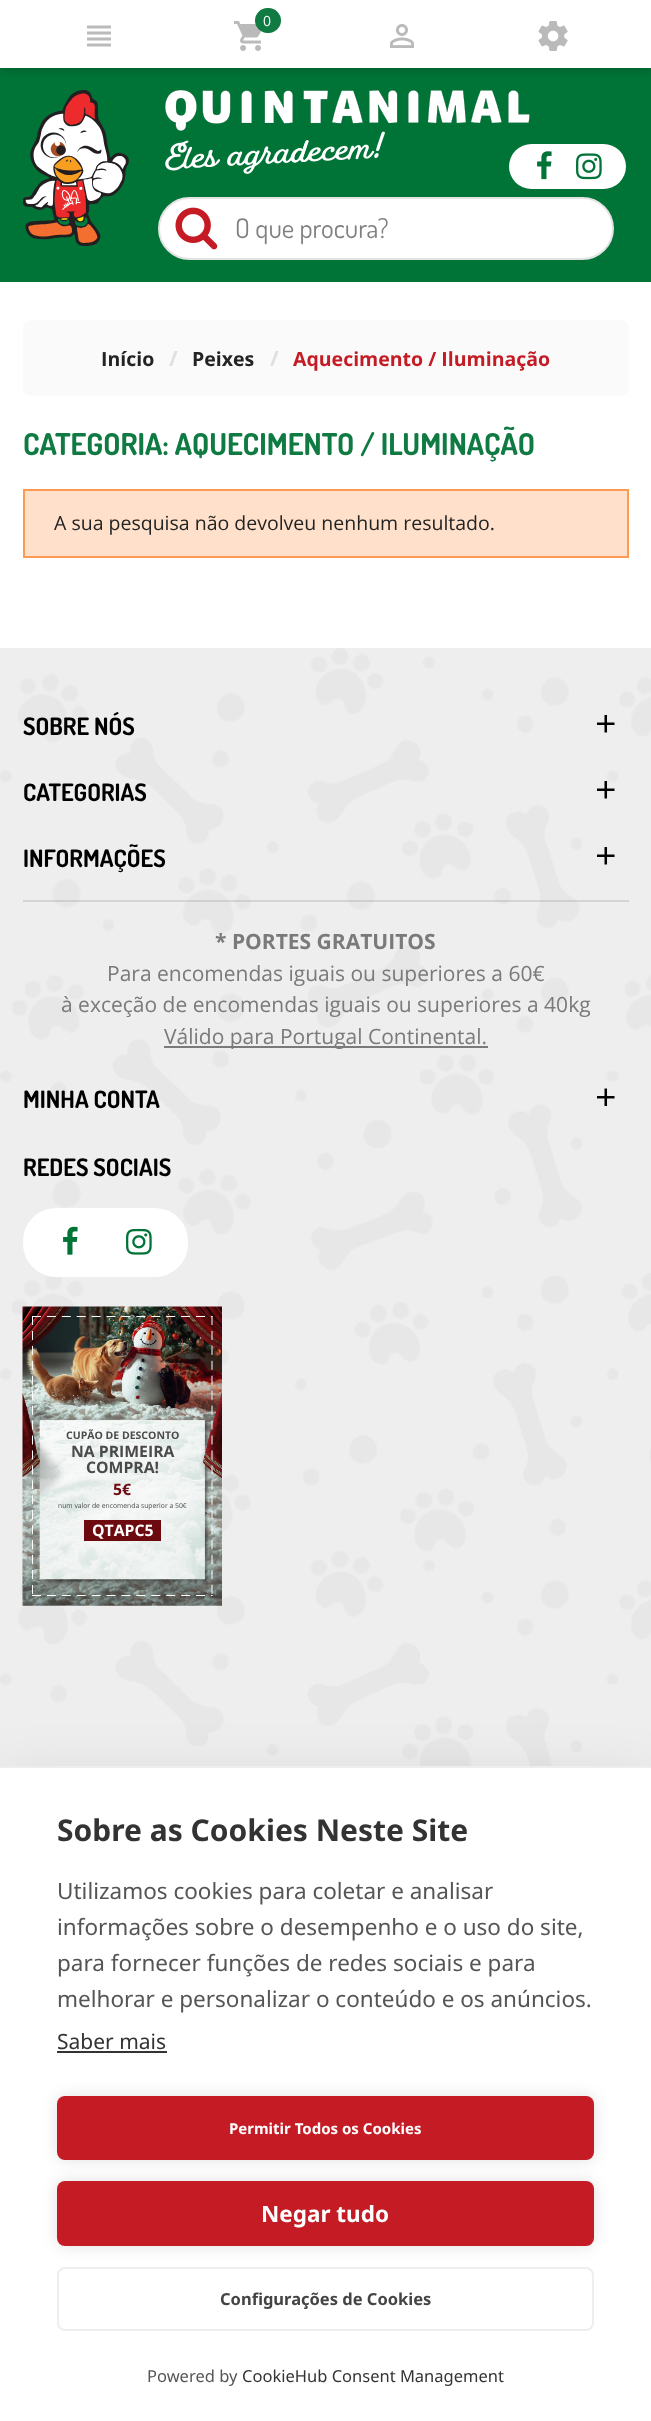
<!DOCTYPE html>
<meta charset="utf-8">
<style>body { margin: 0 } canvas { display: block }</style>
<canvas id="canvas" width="651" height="2421"></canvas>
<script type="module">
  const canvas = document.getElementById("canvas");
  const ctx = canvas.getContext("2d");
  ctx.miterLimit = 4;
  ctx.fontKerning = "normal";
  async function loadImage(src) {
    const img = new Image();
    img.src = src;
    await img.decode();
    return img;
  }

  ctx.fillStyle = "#ffffff";
  ctx.fillRect(0, 0, 651, 2421);
  ctx.fillStyle = "#007337";
  ctx.fillRect(0, 68, 651, 214);
  ctx.fillStyle = "rgba(0, 0, 0, 0.2)";
  ctx.filter = "blur(4px)";
  ctx.beginPath();
  ctx.rect(2, 2, 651, 67);
  ctx.fill();
  ctx.filter = "none";
  ctx.fillStyle = "#ffffff";
  ctx.fillRect(0, 0, 651, 68);
  ctx.drawImage(await loadImage("img1.png"), 87, 25, 24, 22);
  ctx.drawImage(await loadImage("img2.png"), 234, 21, 28, 30);
  ctx.fillStyle = "#0f7a42";
  ctx.beginPath();
  ctx.roundRect(255, 8, 26, 25, 12.5);
  ctx.fill();
  ctx.font = "14px Open Sans";
  ctx.fillStyle = "#ffffff";
  ctx.fillText("0", 263, 26);
  ctx.drawImage(await loadImage("img3.png"), 390, 24, 24, 24);
  ctx.drawImage(await loadImage("img4.png"), 538, 21, 30, 30);
  ctx.drawImage(await loadImage("img5.png"), 23, 90, 106, 156);
  ctx.drawImage(await loadImage("img6.png"), 165, 90, 365, 84);
  ctx.beginPath();
  ctx.roundRect(509, 144, 117, 45, 22.5);
  ctx.fill();
  ctx.drawImage(await loadImage("img7.png"), 537, 151, 15, 29);
  ctx.drawImage(await loadImage("img8.png"), 576, 153, 26, 27);
  ctx.beginPath();
  ctx.roundRect(159, 198, 454, 61, 30.5);
  ctx.fill();
  ctx.strokeStyle = "#e3e3e3";
  ctx.lineWidth = 2;
  ctx.stroke();
  ctx.drawImage(await loadImage("img9.png"), 175, 207, 43, 43);
  ctx.font = "27px Dosis";
  ctx.fillStyle = "#808080";
  ctx.fillText("O que procura?", 235, 238);
  ctx.fillStyle = "#fafafa";
  ctx.beginPath();
  ctx.roundRect(23, 320, 606, 76, 8);
  ctx.fill();
  ctx.font = "bold 19.5px Open Sans";
  ctx.fillStyle = "#232323";
  ctx.fillText("Início", 101, 366);
  ctx.font = "bold 21px Open Sans";
  ctx.fillStyle = "#dfdfdf";
  ctx.fillText("/", 169, 366);
  ctx.font = "bold 19.5px Open Sans";
  ctx.fillStyle = "#232323";
  ctx.fillText("Peixes", 192, 366);
  ctx.font = "bold 21px Open Sans";
  ctx.fillStyle = "#dfdfdf";
  ctx.fillText("/", 270, 366);
  ctx.font = "bold 19.5px Open Sans";
  ctx.fillStyle = "#c41b24";
  ctx.fillText("Aquecimento / Iluminação", 293, 366);
  ctx.font = "bold 30px Dosis";
  ctx.fillStyle = "#0f7a42";
  ctx.fillText("CATEGORIA: AQUECIMENTO / ILUMINAÇÃO", 23, 455);
  ctx.fillStyle = "#ffe1cb";
  ctx.beginPath();
  ctx.rect(24, 490, 604, 67);
  ctx.fill();
  ctx.strokeStyle = "#ff9a52";
  ctx.stroke();
  ctx.font = "19.5px Open Sans";
  ctx.fillStyle = "#232323";
  ctx.fillText("A sua pesquisa não devolveu nenhum resultado.", 54, 530);
  ctx.drawImage(await loadImage("img10.png"), 0, 648, 651, 1118);
  ctx.font = "bold 24px Dosis";
  ctx.fillStyle = "#000000";
  ctx.fillText("SOBRE NÓS", 23, 735);
  ctx.drawImage(await loadImage("img11.png"), 597, 715, 18, 18);
  ctx.fillText("CATEGORIAS", 23, 801);
  ctx.drawImage(await loadImage("img12.png"), 597, 781, 18, 18);
  ctx.fillText("INFORMAÇÕES", 23, 867);
  ctx.drawImage(await loadImage("img11.png"), 597, 847, 18, 18);
  ctx.fillStyle = "rgba(0, 0, 0, 0.1)";
  ctx.fillRect(23, 900, 606, 2);
  ctx.font = "bold 21px Open Sans";
  ctx.fillStyle = "#7a7a7a";
  ctx.fillText("* PORTES GRATUITOS", 215, 949);
  ctx.font = "21px Open Sans";
  ctx.fillText("Para encomendas iguais ou superiores a 60€", 107, 981);
  ctx.fillText("à exceção de encomendas iguais ou superiores a 40kg", 61, 1012);
  ctx.fillRect(164, 1046, 324, 2);
  ctx.fillText("Válido para Portugal Continental.", 164, 1044);
  ctx.font = "bold 24px Dosis";
  ctx.fillStyle = "#000000";
  ctx.fillText("MINHA CONTA", 23, 1108);
  ctx.drawImage(await loadImage("img13.png"), 597, 1088, 18, 18);
  ctx.fillText("REDES SOCIAIS", 23, 1176);
  ctx.fillStyle = "#ffffff";
  ctx.beginPath();
  ctx.roundRect(23, 1208, 165, 69, 33);
  ctx.fill();
  ctx.drawImage(await loadImage("img14.png"), 63, 1226, 15, 29);
  ctx.drawImage(await loadImage("img15.png"), 126, 1228, 26, 27);
  ctx.drawImage(await loadImage("img16.png"), 22, 1306, 200, 300);
  ctx.beginPath();
  ctx.moveTo(32, 1316.5);
  ctx.lineTo(212.5, 1316.5);
  ctx.strokeStyle = "#ffffff";
  ctx.lineWidth = 1;
  ctx.setLineDash([9, 5.91]);
  ctx.stroke();
  ctx.beginPath();
  ctx.moveTo(212, 1316);
  ctx.lineTo(212, 1596.5);
  ctx.setLineDash([9, 5.94]);
  ctx.stroke();
  ctx.beginPath();
  ctx.moveTo(32, 1595.5);
  ctx.lineTo(212.5, 1595.5);
  ctx.setLineDash([9, 5.91]);
  ctx.stroke();
  ctx.beginPath();
  ctx.moveTo(32.5, 1316);
  ctx.lineTo(32.5, 1596.5);
  ctx.setLineDash([9, 5.94]);
  ctx.stroke();
  ctx.font = "bold 10.5px Open Sans";
  ctx.fillStyle = "#4a4a4a";
  ctx.fillText("CUPÃO DE DESCONTO", 66, 1439);
  ctx.font = "bold 15.75px Open Sans";
  ctx.fillText("NA PRIMEIRA", 71, 1457);
  ctx.fillText("COMPRA!", 86, 1473);
  ctx.fillStyle = "#6c0a0f";
  ctx.fillText("5€", 113, 1495);
  ctx.font = "6.8px Open Sans";
  ctx.fillStyle = "#4a4a4a";
  ctx.fillText("num valor de encomenda superior a 50€", 58, 1508);
  ctx.fillStyle = "#6c0a0f";
  ctx.fillRect(84, 1520, 77, 21);
  ctx.font = "bold 15.75px Open Sans";
  ctx.fillStyle = "#ffffff";
  ctx.fillText("QTAPC5", 92, 1536);
  ctx.fillStyle = "rgba(0, 0, 0, 0.1)";
  ctx.filter = "blur(30px)";
  ctx.beginPath();
  ctx.rect(0, 1781, 651, 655);
  ctx.fill();
  ctx.filter = "none";
  ctx.fillStyle = "#ffffff";
  ctx.fillRect(0, 1768, 651, 653);
  ctx.fillStyle = "#eeeeee";
  ctx.fillRect(0, 1766, 651, 2);
  ctx.font = "bold 30px Noto Sans";
  ctx.fillStyle = "#333333";
  ctx.fillText("Sobre as Cookies Neste Site", 57, 1841);
  ctx.font = "22.5px Noto Sans";
  ctx.fillStyle = "#555555";
  ctx.fillText("Utilizamos cookies para coletar e analisar", 57, 1899);
  ctx.fillText("informações sobre o desempenho e o uso do site,", 57, 1935);
  ctx.fillText("para fornecer funções de redes sociais e para", 57, 1971);
  ctx.fillText("melhorar e personalizar o conteúdo e os anúncios.", 57, 2007);
  ctx.font = "21px Noto Sans";
  ctx.fillStyle = "#333333";
  ctx.fillText("Saber mais", 57, 2049);
  ctx.fillRect(57, 2051, 110, 2);
  ctx.fillStyle = "rgba(0, 0, 0, 0.12)";
  ctx.filter = "blur(7.5px)";
  ctx.beginPath();
  ctx.roundRect(57, 2096, 537, 64, 8);
  ctx.fill();
  ctx.filter = "none";
  ctx.fillStyle = "#c41b24";
  ctx.beginPath();
  ctx.roundRect(57, 2096, 537, 64, 8);
  ctx.fill();
  ctx.font = "bold 15px Noto Sans";
  ctx.fillStyle = "#ffffff";
  ctx.fillText("Permitir Todos os Cookies", 229, 2134);
  ctx.fillStyle = "rgba(0, 0, 0, 0.12)";
  ctx.filter = "blur(7.5px)";
  ctx.beginPath();
  ctx.roundRect(57, 2181, 537, 65, 8);
  ctx.fill();
  ctx.filter = "none";
  ctx.fillStyle = "#c41b24";
  ctx.beginPath();
  ctx.roundRect(57, 2181, 537, 65, 8);
  ctx.fill();
  ctx.font = "bold 22.5px Noto Sans";
  ctx.fillStyle = "#ffffff";
  ctx.fillText("Negar tudo", 261, 2222);
  ctx.beginPath();
  ctx.roundRect(58, 2268, 535, 62, 7);
  ctx.strokeStyle = "#eeeeee";
  ctx.lineWidth = 2;
  ctx.setLineDash([]);
  ctx.stroke();
  ctx.font = "bold 16.5px Noto Sans";
  ctx.fillStyle = "#444444";
  ctx.fillText("Configurações de Cookies", 220, 2305);
  ctx.font = "16.5px Noto Sans";
  ctx.fillStyle = "#555555";
  ctx.fillText("Powered by", 147, 2382);
  ctx.fillStyle = "#333333";
  ctx.fillText("CookieHub Consent Management", 242, 2382);
</script>
